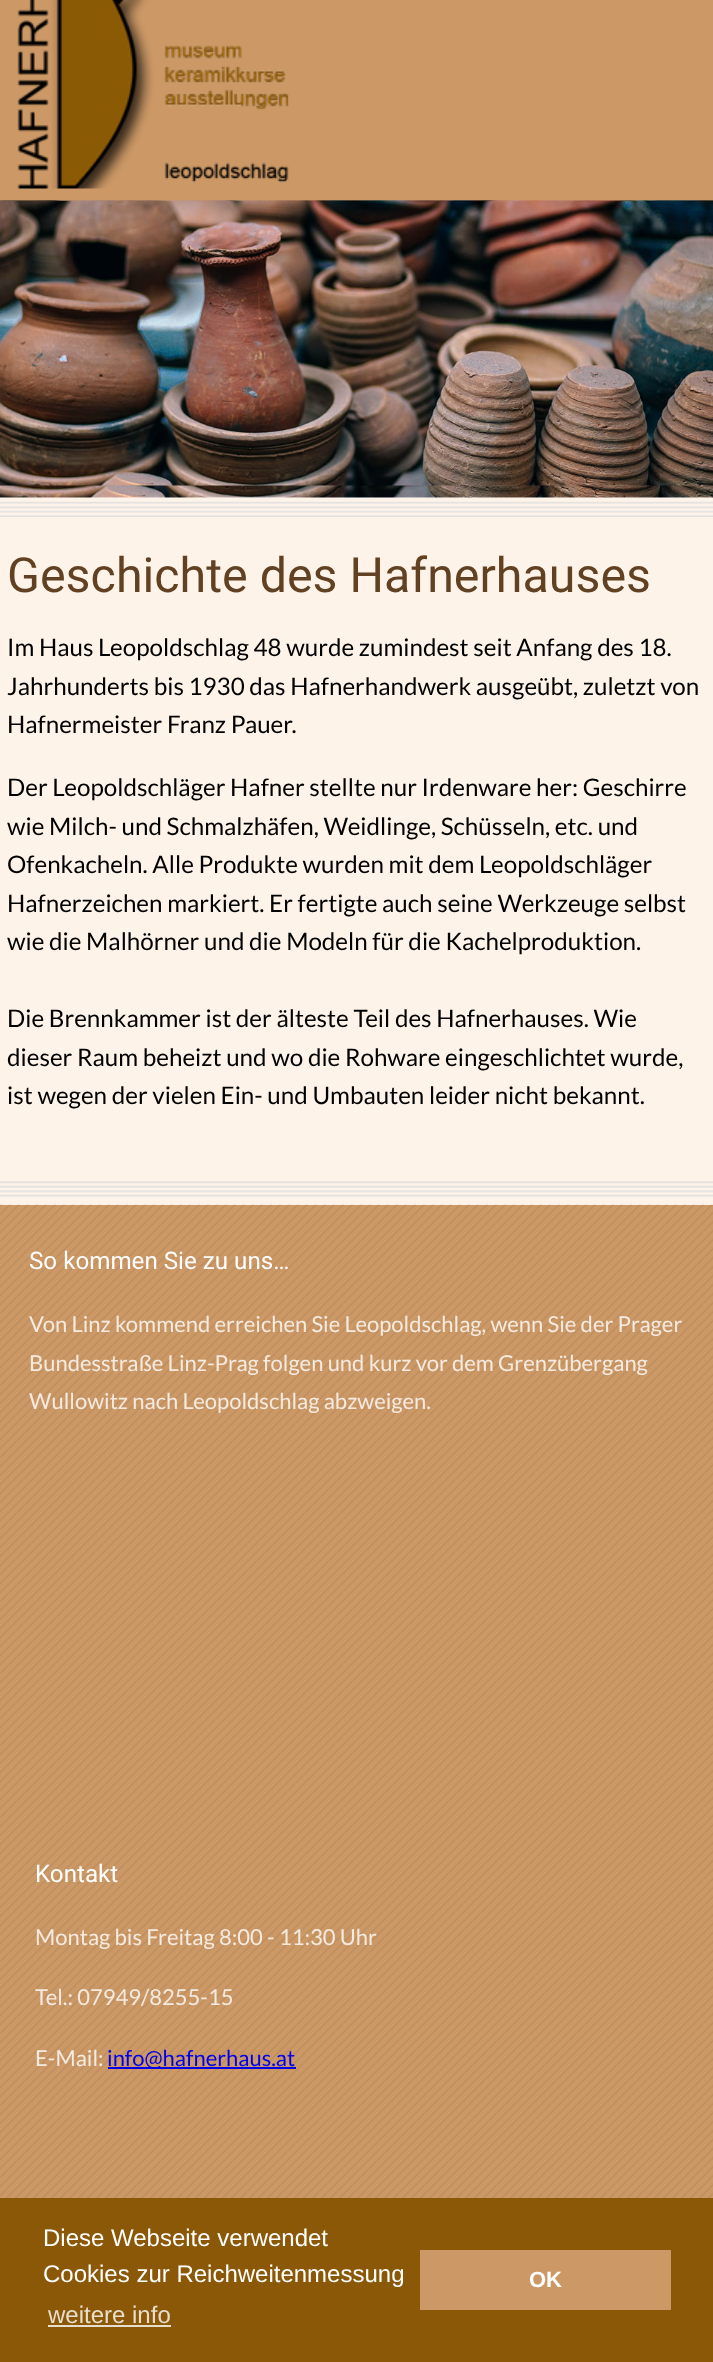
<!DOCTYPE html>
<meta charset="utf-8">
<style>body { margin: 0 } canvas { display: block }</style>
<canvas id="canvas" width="713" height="2362"></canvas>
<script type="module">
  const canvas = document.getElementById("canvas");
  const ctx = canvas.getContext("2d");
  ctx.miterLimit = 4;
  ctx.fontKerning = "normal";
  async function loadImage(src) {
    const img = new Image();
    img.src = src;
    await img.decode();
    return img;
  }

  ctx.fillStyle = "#cc9966";
  ctx.fillRect(0, 0, 713, 2362);
  ctx.drawImage(await loadImage("img1.png"), 17, 0, 272, 189);
  ctx.fillStyle = "#ffffff";
  ctx.fillRect(0, 497, 713, 1);
  ctx.drawImage(await loadImage("img2.png"), 0, 200, 713, 298);
  ctx.drawImage(await loadImage("img3.png"), 0, 200, 713, 286);
  ctx.fillStyle = "#fdf3e9";
  ctx.fillRect(0, 498, 713, 707);
  ctx.drawImage(await loadImage("img4.png"), 0, 501, 713, 16);
  ctx.font = "48.4px Roboto";
  ctx.fillStyle = "#614121";
  ctx.fillText("Geschichte des Hafnerhauses", 7, 592);
  ctx.font = "24.2px Lato";
  ctx.fillStyle = "#000000";
  ctx.fillText("Im Haus Leopoldschlag 48 wurde zumindest seit Anfang des 18.", 7, 656);
  ctx.fillText("Jahrhunderts bis 1930 das Hafnerhandwerk ausgeübt, zuletzt von", 7, 695);
  ctx.fillText("Hafnermeister Franz Pauer.", 7, 733);
  ctx.fillText("Der Leopoldschläger Hafner stellte nur Irdenware her: Geschirre", 7, 796);
  ctx.fillText("wie Milch- und Schmalzhäfen, Weidlinge, Schüsseln, etc. und", 7, 835);
  ctx.fillText("Ofenkacheln. Alle Produkte wurden mit dem Leopoldschläger", 7, 873);
  ctx.fillText("Hafnerzeichen markiert. Er fertigte auch seine Werkzeuge selbst", 7, 912);
  ctx.fillText("wie die Malhörner und die Modeln für die Kachelproduktion.", 7, 950);
  ctx.fillText("Die Brennkammer ist der älteste Teil des Hafnerhauses. Wie", 7, 1027);
  ctx.fillText("dieser Raum beheizt und wo die Rohware eingeschlichtet wurde,", 7, 1066);
  ctx.fillText("ist wegen der vielen Ein- und Umbauten leider nicht bekannt.", 7, 1104);
  ctx.drawImage(await loadImage("img5.png"), 0, 1181, 713, 16);
  ctx.drawImage(await loadImage("img6.png"), 0, 1204, 713, 994);
  ctx.font = "24.2px Roboto";
  ctx.fillStyle = "#ffffff";
  ctx.fillText("So kommen Sie zu uns…", 29, 1269);
  ctx.font = "22px Lato";
  ctx.fillStyle = "#f4eae0";
  ctx.fillText("Von Linz kommend erreichen Sie Leopoldschlag, wenn Sie der Prager", 29, 1332);
  ctx.fillText("Bundesstraße Linz-Prag folgen und kurz vor dem Grenzübergang", 29, 1371);
  ctx.fillText("Wullowitz nach Leopoldschlag abzweigen.", 29, 1409);
  ctx.font = "24.2px Roboto";
  ctx.fillStyle = "#ffffff";
  ctx.fillText("Kontakt", 35, 1882);
  ctx.font = "22px Lato";
  ctx.fillStyle = "#f4eae0";
  ctx.fillText("Montag bis Freitag 8:00 - 11:30 Uhr", 35, 1945);
  ctx.fillText("Tel.: 07949/8255-15", 35, 2005);
  ctx.fillText("E-Mail:", 35, 2066);
  ctx.fillStyle = "#0000ee";
  ctx.fillRect(108, 2067, 188, 2);
  ctx.fillText("info@hafnerhaus.at", 107, 2066);
  ctx.fillStyle = "#8a5806";
  ctx.fillRect(0, 2198, 713, 164);
  ctx.font = "24px Liberation Sans";
  ctx.fillStyle = "#ffffff";
  ctx.fillText("Diese Webseite verwendet", 43, 2246);
  ctx.fillText("Cookies zur Reichweitenmessung", 43, 2282);
  ctx.fillStyle = "#e8decd";
  ctx.fillText("weitere info", 48, 2323);
  ctx.fillRect(48, 2325, 123, 2);
  ctx.fillStyle = "#cc9966";
  ctx.fillRect(420, 2250, 251, 60);
  ctx.font = "bold 22px Liberation Sans";
  ctx.fillStyle = "#ffffff";
  ctx.fillText("OK", 529, 2287);
</script>
